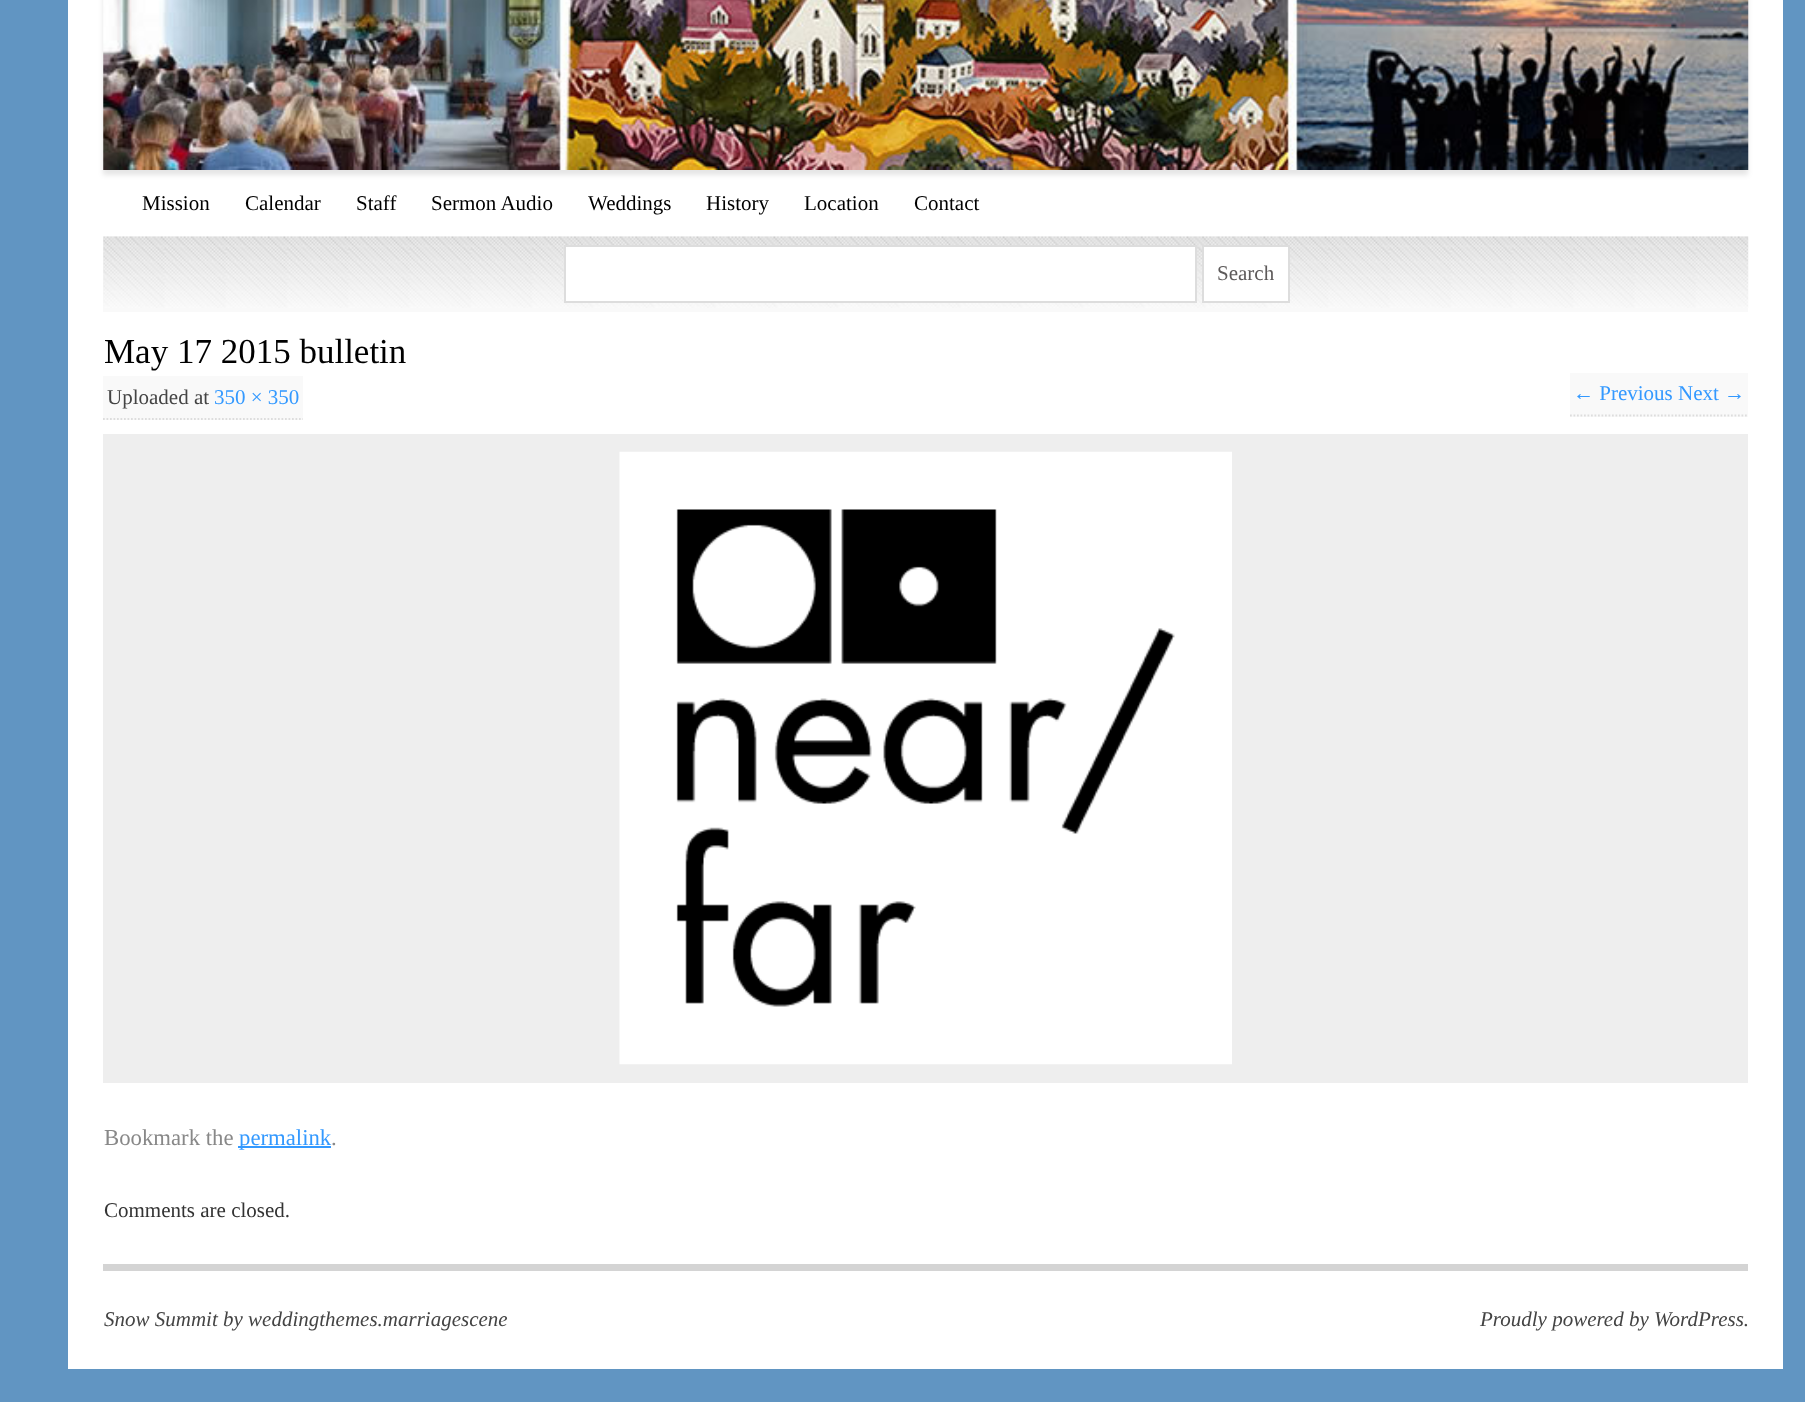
<!DOCTYPE html>
<meta charset="utf-8">
<style>body { margin: 0 } canvas { display: block }</style>
<canvas id="canvas" width="1805" height="1402"></canvas>
<script type="module">
  const canvas = document.getElementById("canvas");
  const ctx = canvas.getContext("2d");
  ctx.miterLimit = 4;
  ctx.fontKerning = "normal";
  async function loadImage(src) {
    const img = new Image();
    img.src = src;
    await img.decode();
    return img;
  }

  ctx.fillStyle = "#6195c2";
  ctx.fillRect(0, 0, 1805, 1402);
  ctx.fillStyle = "#ffffff";
  ctx.fillRect(68, 0, 1715, 1369);
  ctx.fillStyle = "rgba(0, 0, 0, 0.1)";
  ctx.filter = "blur(2.5px)";
  ctx.beginPath();
  ctx.rect(103, -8, 1645, 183);
  ctx.fill();
  ctx.filter = "none";
  ctx.drawImage(await loadImage("img1.png"), 103, 0, 1646, 170);
  ctx.font = "21px Liberation Serif";
  ctx.fillStyle = "#000000";
  ctx.fillText("Mission", 142, 210);
  ctx.fillText("Calendar", 245, 210);
  ctx.fillText("Staff", 356, 210);
  ctx.fillText("Sermon Audio", 431, 210);
  ctx.fillText("Weddings", 588, 210);
  ctx.fillText("History", 706, 210);
  ctx.fillText("Location", 804, 210);
  ctx.fillText("Contact", 914, 210);
  ctx.fillStyle = "#f9f9f9";
  ctx.fillRect(103, 236, 1645, 76);
  ctx.drawImage(await loadImage("img2.png"), 103, 236, 1646, 72);
  ctx.fillStyle = "#ffffff";
  ctx.beginPath();
  ctx.rect(565, 246, 631, 56);
  ctx.fill();
  ctx.strokeStyle = "#dddddd";
  ctx.lineWidth = 2;
  ctx.stroke();
  ctx.beginPath();
  ctx.rect(1203, 246, 86, 56);
  ctx.fill();
  ctx.stroke();
  ctx.fillStyle = "#5d5a5a";
  ctx.fillText("Search", 1217, 280);
  ctx.font = "35px Liberation Serif";
  ctx.fillStyle = "#000000";
  ctx.fillText("May 17 2015 bulletin", 104, 363);
  ctx.fillStyle = "#f9f9f9";
  ctx.fillRect(103, 376, 200, 44);
  ctx.beginPath();
  ctx.moveTo(103, 419);
  ctx.lineTo(303, 419);
  ctx.lineWidth = 1.8;
  ctx.setLineDash([1.75, 1.75]);
  ctx.stroke();
  ctx.font = "21px Liberation Serif";
  ctx.fillStyle = "#444444";
  ctx.fillText("Uploaded at", 107, 404);
  ctx.fillStyle = "#3399ff";
  ctx.fillText("350 × 350", 214, 404);
  ctx.fillStyle = "#f9f9f9";
  ctx.fillRect(1570, 373, 178, 44);
  ctx.beginPath();
  ctx.moveTo(1570, 415.5);
  ctx.lineTo(1748, 415.5);
  ctx.stroke();
  ctx.fillStyle = "#3399ff";
  ctx.fillText("← Previous Next →", 1573, 400);
  ctx.fillStyle = "#eeeeee";
  ctx.fillRect(103, 434, 1645, 649);
  ctx.drawImage(await loadImage("img3.png"), 619, 451, 613, 614);
  ctx.font = "22.75px Liberation Serif";
  ctx.fillStyle = "#888888";
  ctx.fillText("Bookmark the", 104, 1145);
  ctx.fillStyle = "#3399ff";
  ctx.fillRect(238, 1146, 93, 2);
  ctx.fillText("permalink", 239, 1145);
  ctx.fillStyle = "#888888";
  ctx.fillText(".", 331, 1145);
  ctx.font = "21px Liberation Serif";
  ctx.fillStyle = "#333333";
  ctx.fillText("Comments are closed.", 104, 1217);
  ctx.fillStyle = "#d4d4d4";
  ctx.fillRect(103, 1264, 1645, 7);
  ctx.font = "italic 21px Liberation Serif";
  ctx.fillStyle = "#444444";
  ctx.fillText("Snow Summit by weddingthemes.marriagescene", 104, 1326);
  ctx.fillText("Proudly powered by WordPress.", 1480, 1326);
</script>
